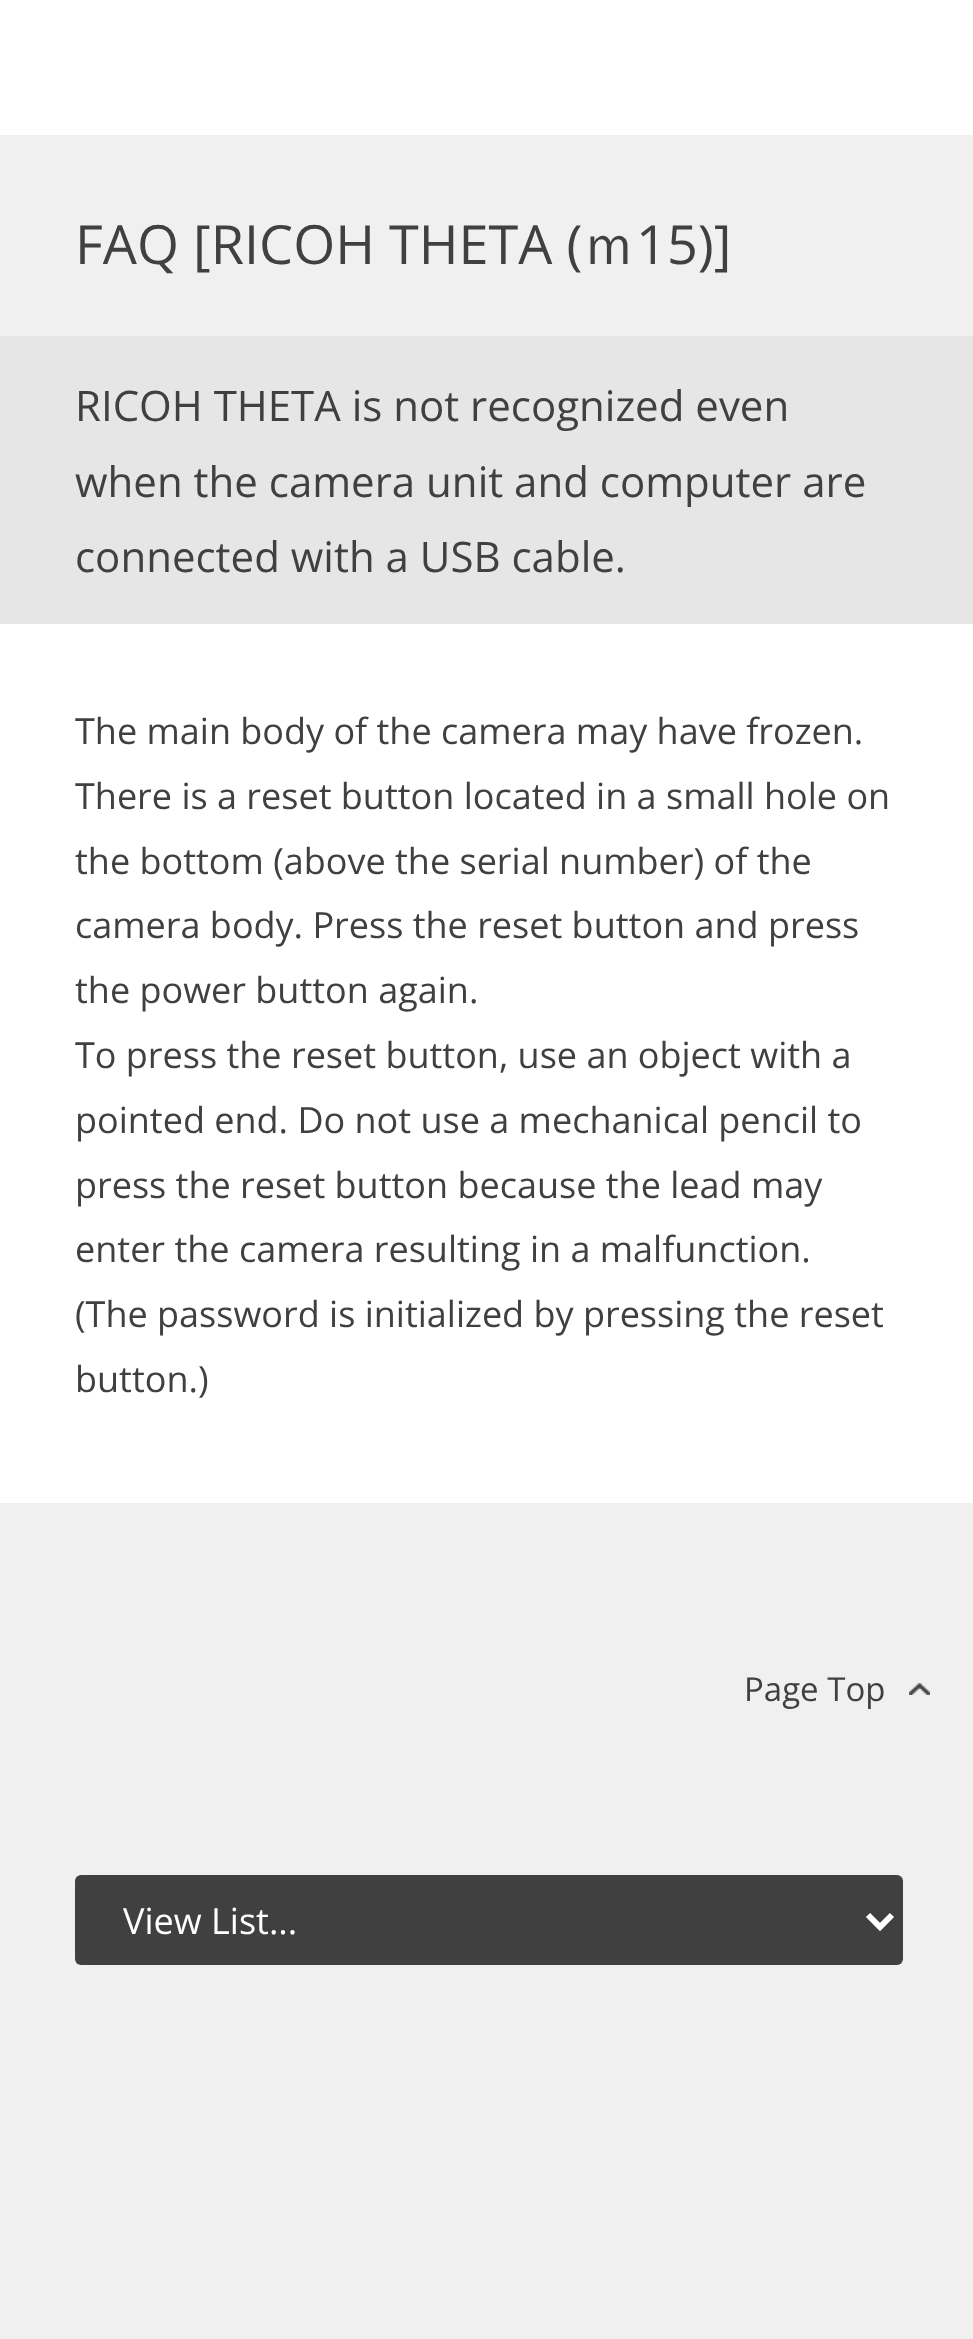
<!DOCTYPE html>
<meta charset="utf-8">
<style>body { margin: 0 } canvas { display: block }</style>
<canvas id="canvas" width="973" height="2339"></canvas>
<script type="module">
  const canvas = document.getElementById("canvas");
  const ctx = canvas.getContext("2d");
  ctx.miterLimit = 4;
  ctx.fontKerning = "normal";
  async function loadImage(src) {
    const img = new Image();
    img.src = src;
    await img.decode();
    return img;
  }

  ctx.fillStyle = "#f0f0f0";
  ctx.fillRect(0, 0, 973, 2339);
  ctx.fillStyle = "#ffffff";
  ctx.fillRect(0, 0, 973, 135);
  ctx.font = "54px Open Sans";
  ctx.fillStyle = "#404040";
  ctx.fillText("FAQ [RICOH THETA (", 75, 264);
  ctx.font = "500 54px WenQuanYi Zen Hei";
  ctx.fillText("ｍ", 582, 264);
  ctx.font = "54px Open Sans";
  ctx.fillText("15)]", 636, 264);
  ctx.fillStyle = "#e6e6e6";
  ctx.fillRect(0, 336, 973, 288);
  ctx.font = "42px Open Sans";
  ctx.fillStyle = "#404040";
  ctx.fillText("RICOH THETA is not recognized even", 75, 421);
  ctx.fillText("when the camera unit and computer are", 75, 497);
  ctx.fillText("connected with a USB cable.", 75, 572);
  ctx.fillStyle = "#ffffff";
  ctx.fillRect(0, 624, 973, 879);
  ctx.font = "36px Open Sans";
  ctx.fillStyle = "#404040";
  ctx.fillText("The main body of the camera may have frozen.", 75, 744);
  ctx.fillText("There is a reset button located in a small hole on", 75, 809);
  ctx.fillText("the bottom (above the serial number) of the", 75, 874);
  ctx.fillText("camera body. Press the reset button and press", 75, 938);
  ctx.fillText("the power button again.", 75, 1003);
  ctx.fillText("To press the reset button, use an object with a", 75, 1068);
  ctx.fillText("pointed end. Do not use a mechanical pencil to", 75, 1133);
  ctx.fillText("press the reset button because the lead may", 75, 1198);
  ctx.fillText("enter the camera resulting in a malfunction.", 75, 1262);
  ctx.fillText("(The password is initialized by pressing the reset", 75, 1327);
  ctx.fillText("button.)", 75, 1392);
  ctx.drawImage(await loadImage("img1.png"), 909, 1683, 21, 12);
  ctx.font = "33px Open Sans";
  ctx.fillText("Page Top", 744, 1701);
  ctx.beginPath();
  ctx.roundRect(75, 1875, 828, 90, 6);
  ctx.fill();
  ctx.beginPath();
  ctx.moveTo(868, 1915);
  ctx.lineTo(880, 1927);
  ctx.lineTo(892, 1915);
  ctx.strokeStyle = "#ffffff";
  ctx.lineWidth = 6;
  ctx.stroke();
  ctx.font = "36px Open Sans";
  ctx.fillStyle = "#ffffff";
  ctx.fillText("View List...", 123, 1934);
</script>
